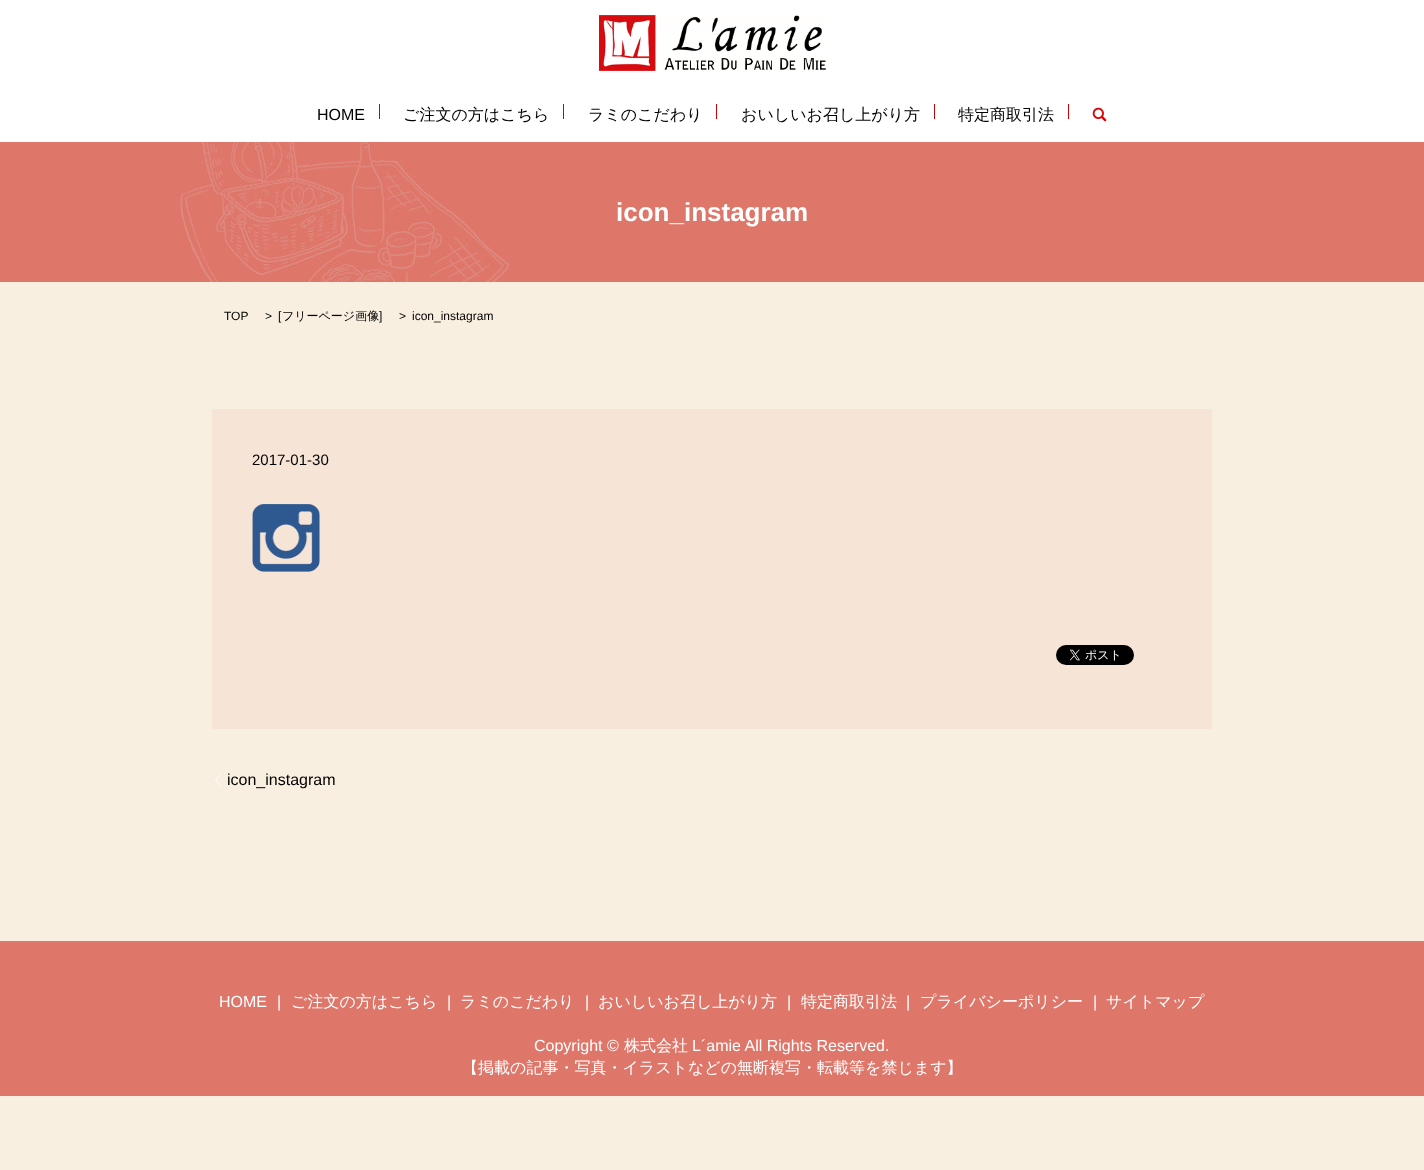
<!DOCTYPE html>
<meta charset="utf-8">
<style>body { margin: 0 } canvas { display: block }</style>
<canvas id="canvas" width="1424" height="1170"></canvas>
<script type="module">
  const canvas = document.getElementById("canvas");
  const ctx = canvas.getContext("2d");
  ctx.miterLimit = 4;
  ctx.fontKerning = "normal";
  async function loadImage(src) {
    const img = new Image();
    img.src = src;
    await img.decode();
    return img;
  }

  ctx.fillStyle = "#f8efe0";
  ctx.fillRect(0, 0, 1424, 1170);
  ctx.fillStyle = "#ffffff";
  ctx.fillRect(0, 0, 1424, 142);
  ctx.drawImage(await loadImage("img1.png"), 599, 15, 227, 56);
  ctx.font = "16px Liberation Sans";
  ctx.fillStyle = "#000000";
  ctx.fillText("HOME", 317, 120);
  ctx.fillStyle = "#c30509";
  ctx.fillRect(379, 104, 1, 15);
  ctx.font = "500 16px WenQuanYi Zen Hei";
  ctx.fillStyle = "#000000";
  ctx.fillText("ご注文の方はこちら", 403, 120);
  ctx.fillStyle = "#c30509";
  ctx.fillRect(563, 104, 1, 15);
  ctx.fillStyle = "#000000";
  ctx.fillText("ラミのこだわり", 588, 120);
  ctx.fillStyle = "#c30509";
  ctx.fillRect(716, 104, 1, 15);
  ctx.fillStyle = "#000000";
  ctx.fillText("おいしいお召し上がり方", 741, 120);
  ctx.fillStyle = "#c30509";
  ctx.fillRect(934, 104, 1, 15);
  ctx.fillStyle = "#000000";
  ctx.fillText("特定商取引法", 958, 120);
  ctx.fillStyle = "#c30509";
  ctx.fillRect(1068, 104, 1, 15);
  ctx.drawImage(await loadImage("img2.png"), 1092, 107, 15, 15);
  ctx.drawImage(await loadImage("img3.png"), 0, 142, 1424, 140);
  ctx.font = "bold 26px Liberation Sans";
  ctx.fillStyle = "#ffffff";
  ctx.fillText("icon_instagram", 616, 221);
  ctx.font = "12px Liberation Sans";
  ctx.fillStyle = "#000000";
  ctx.fillText("TOP", 224, 320);
  ctx.fillText(">", 265, 320);
  ctx.fillText("[", 278, 320);
  ctx.font = "500 12px WenQuanYi Zen Hei";
  ctx.fillText("フリーページ画像", 282, 320);
  ctx.font = "12px Liberation Sans";
  ctx.fillText("]", 379, 320);
  ctx.fillText(">", 399, 320);
  ctx.fillText("icon_instagram", 412, 320);
  ctx.fillStyle = "#f6e4d6";
  ctx.fillRect(212, 409, 1000, 320);
  ctx.font = "15px Liberation Sans";
  ctx.fillStyle = "#000000";
  ctx.fillText("2017-01-30", 252, 465);
  ctx.drawImage(await loadImage("img4.png"), 252, 504, 68, 68);
  ctx.drawImage(await loadImage("img5.png"), 1056, 645, 78, 20);
  ctx.fillStyle = "#ffffff";
  ctx.beginPath();
  ctx.moveTo(215, 780.5);
  ctx.lineTo(220.5, 774.5);
  ctx.lineTo(221, 775.5);
  ctx.lineTo(215.5, 781);
  ctx.closePath();
  ctx.fill();
  ctx.font = "16px Liberation Sans";
  ctx.fillStyle = "#000000";
  ctx.fillText("icon_instagram", 227, 785);
  ctx.fillStyle = "#ffffff";
  ctx.beginPath();
  ctx.moveTo(220.5, 786);
  ctx.lineTo(215, 780.5);
  ctx.lineTo(215.5, 779.5);
  ctx.lineTo(221, 785.5);
  ctx.closePath();
  ctx.fill();
  ctx.fillStyle = "#de766a";
  ctx.fillRect(0, 941, 1424, 155);
  ctx.fillStyle = "#ffffff";
  ctx.fillText("HOME", 219, 1007);
  ctx.fillText("|", 277, 1007);
  ctx.font = "500 16px WenQuanYi Zen Hei";
  ctx.fillText("ご注文の方はこちら", 291, 1007);
  ctx.font = "16px Liberation Sans";
  ctx.fillText("|", 447, 1007);
  ctx.font = "500 16px WenQuanYi Zen Hei";
  ctx.fillText("ラミのこだわり", 460, 1007);
  ctx.font = "16px Liberation Sans";
  ctx.fillText("|", 585, 1007);
  ctx.font = "500 16px WenQuanYi Zen Hei";
  ctx.fillText("おいしいお召し上がり方", 598, 1007);
  ctx.font = "16px Liberation Sans";
  ctx.fillText("|", 787, 1007);
  ctx.font = "500 16px WenQuanYi Zen Hei";
  ctx.fillText("特定商取引法", 801, 1007);
  ctx.font = "16px Liberation Sans";
  ctx.fillText("|", 906, 1007);
  ctx.font = "500 16px WenQuanYi Zen Hei";
  ctx.fillText("プライバシーポリシー", 920, 1007);
  ctx.font = "16px Liberation Sans";
  ctx.fillText("|", 1093, 1007);
  ctx.font = "500 16px WenQuanYi Zen Hei";
  ctx.fillText("サイトマップ", 1106, 1007);
  ctx.font = "16px Liberation Sans";
  ctx.fillText("Copyright ©", 534, 1051);
  ctx.font = "500 16px WenQuanYi Zen Hei";
  ctx.fillText("株式会社", 624, 1051);
  ctx.font = "16px Liberation Sans";
  ctx.fillText("L´amie All Rights Reserved.", 692, 1051);
  ctx.font = "500 16px WenQuanYi Zen Hei";
  ctx.fillText("【掲載の記事・写真・イラストなどの無断複写・転載等を禁じます】", 462, 1073);
</script>
